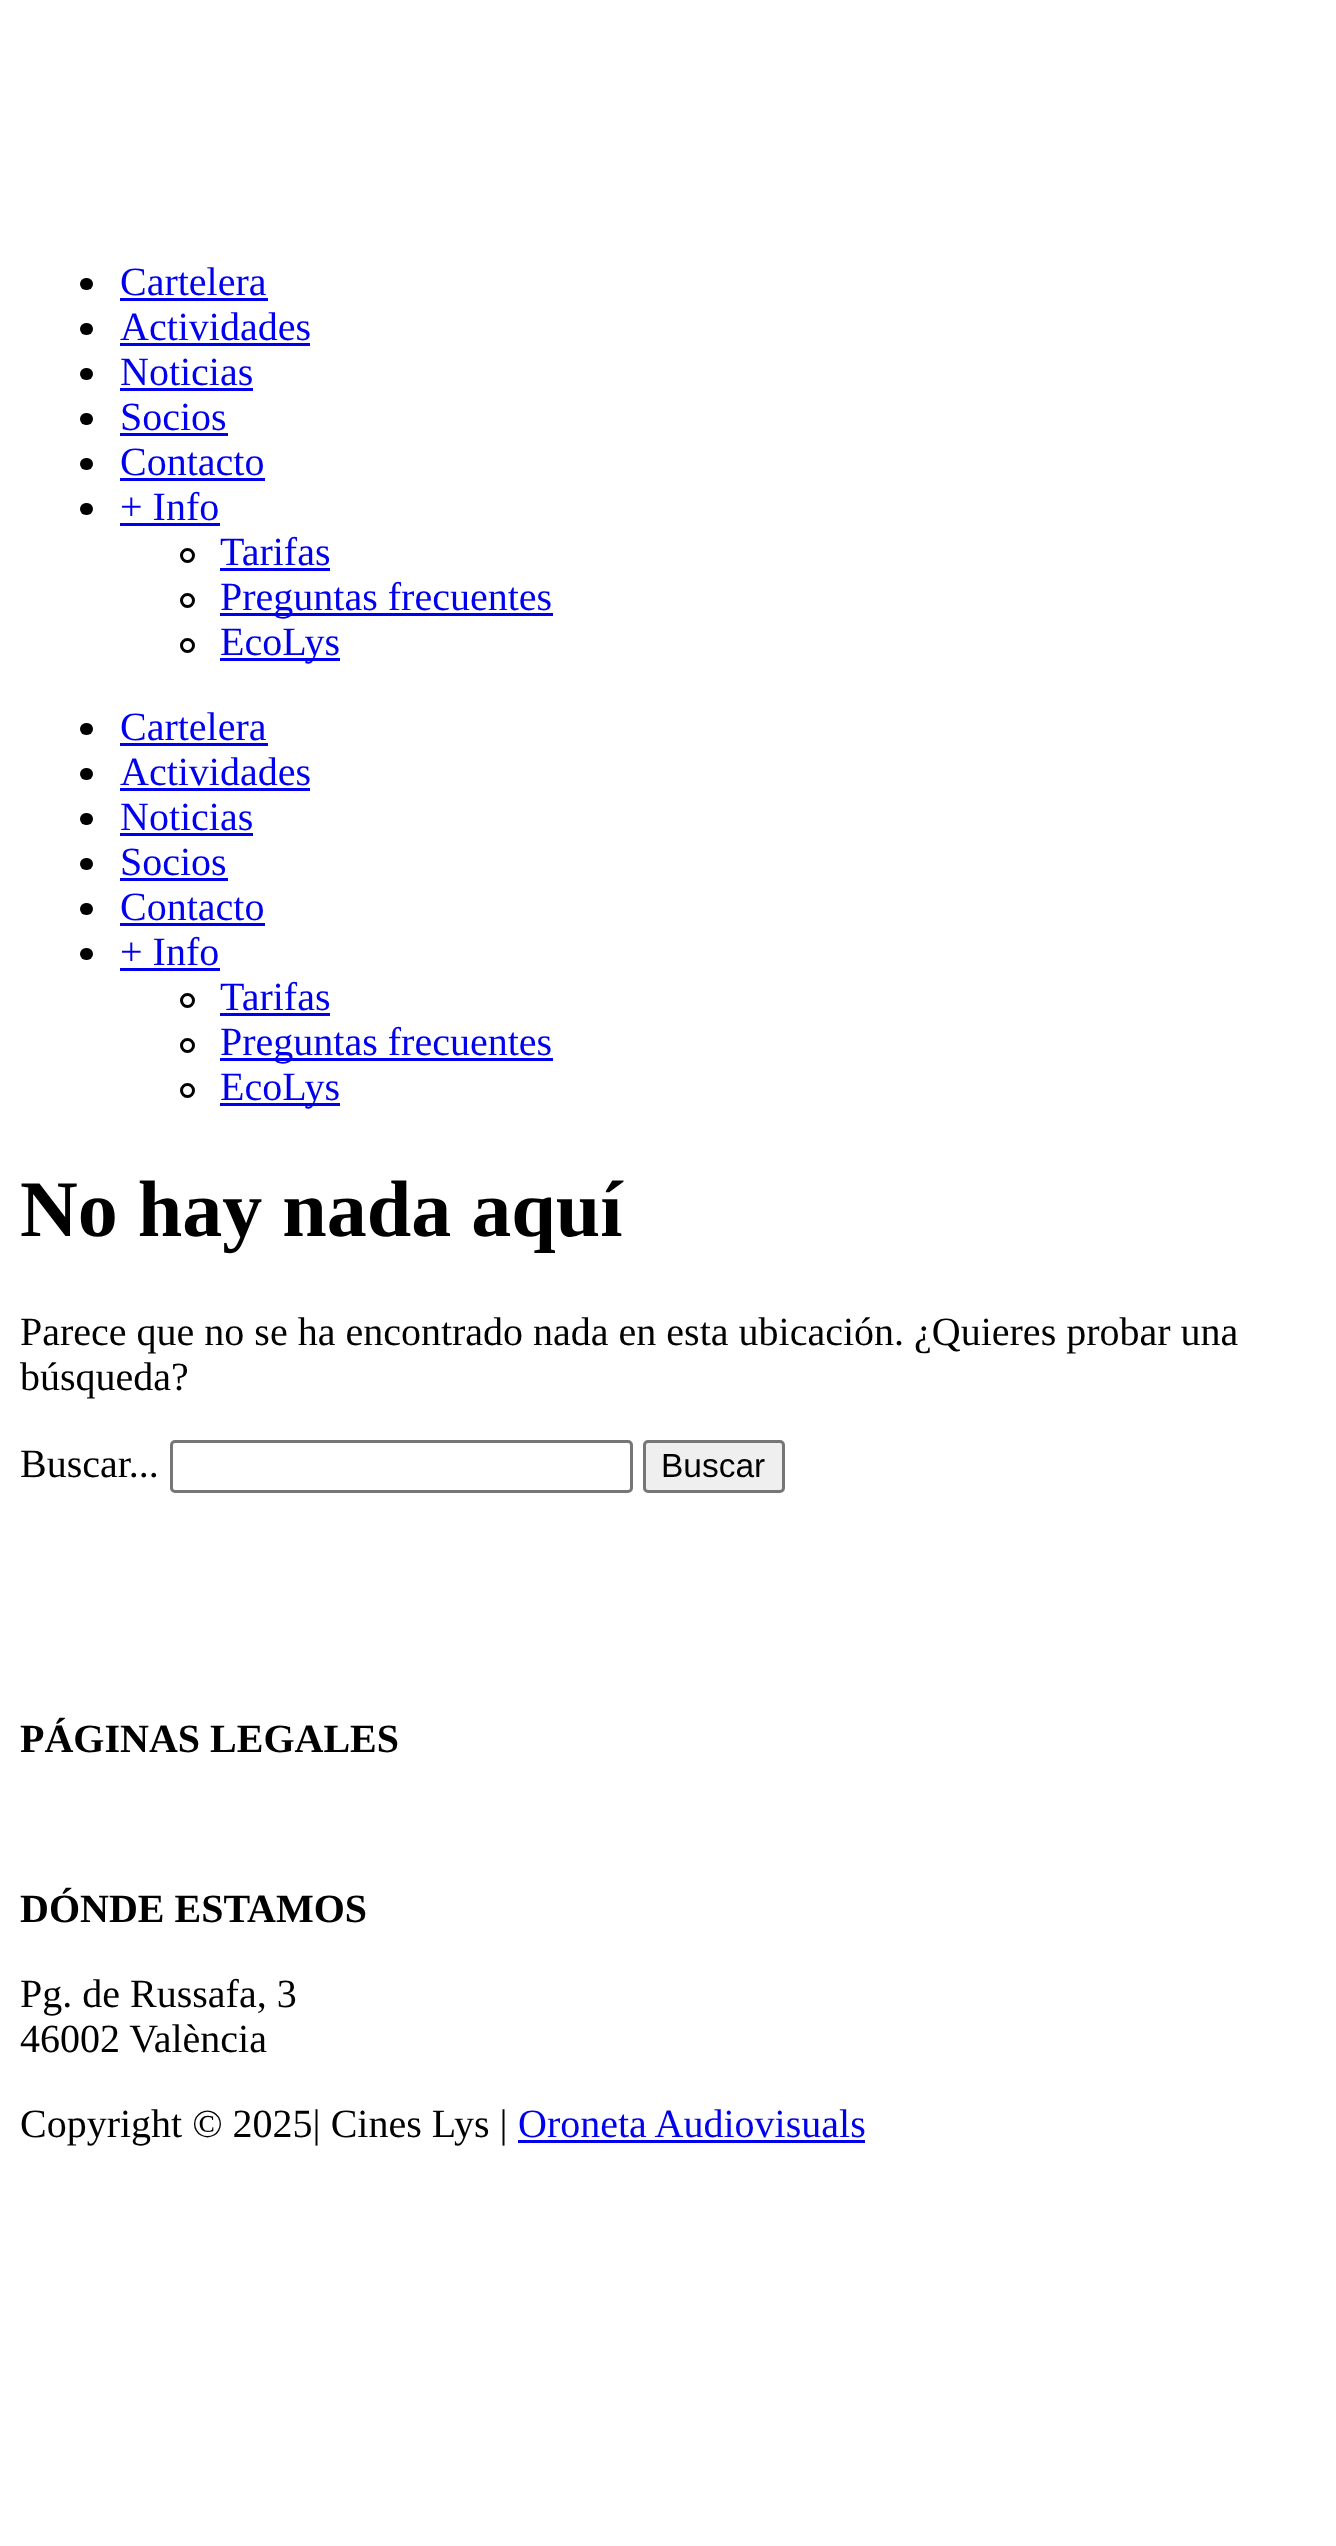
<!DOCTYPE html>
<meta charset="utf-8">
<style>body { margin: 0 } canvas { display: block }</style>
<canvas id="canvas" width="1336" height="2546"></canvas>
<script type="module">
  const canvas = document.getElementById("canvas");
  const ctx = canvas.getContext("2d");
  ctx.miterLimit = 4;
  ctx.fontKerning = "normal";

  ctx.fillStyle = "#ffffff";
  ctx.fillRect(0, 0, 1336, 2546);
  ctx.fillStyle = "#000000";
  ctx.beginPath();
  ctx.roundRect(80, 278, 13, 12, 6);
  ctx.fill();
  ctx.font = "40px Liberation Serif";
  ctx.fillStyle = "#0000ee";
  ctx.fillText("Cartelera", 120, 295);
  ctx.fillRect(120, 298, 148, 3);
  ctx.fillStyle = "#000000";
  ctx.beginPath();
  ctx.roundRect(80, 323, 13, 12, 6);
  ctx.fill();
  ctx.fillStyle = "#0000ee";
  ctx.fillText("Actividades", 120, 340);
  ctx.fillRect(120, 343, 190, 3);
  ctx.fillStyle = "#000000";
  ctx.beginPath();
  ctx.roundRect(80, 368, 13, 12, 6);
  ctx.fill();
  ctx.fillStyle = "#0000ee";
  ctx.fillText("Noticias", 120, 385);
  ctx.fillRect(120, 388, 133, 3);
  ctx.fillStyle = "#000000";
  ctx.beginPath();
  ctx.roundRect(80, 413, 13, 12, 6);
  ctx.fill();
  ctx.fillStyle = "#0000ee";
  ctx.fillText("Socios", 120, 430);
  ctx.fillRect(120, 433, 108, 3);
  ctx.fillStyle = "#000000";
  ctx.beginPath();
  ctx.roundRect(80, 458, 13, 12, 6);
  ctx.fill();
  ctx.fillStyle = "#0000ee";
  ctx.fillText("Contacto", 120, 475);
  ctx.fillRect(120, 478, 145, 3);
  ctx.fillStyle = "#000000";
  ctx.beginPath();
  ctx.roundRect(80, 503, 13, 12, 6);
  ctx.fill();
  ctx.fillStyle = "#0000ee";
  ctx.fillText("+ Info", 120, 520);
  ctx.fillRect(120, 523, 100, 3);
  ctx.beginPath();
  ctx.arc(187.5, 555.5, 6, 0, Math.PI * 2);
  ctx.strokeStyle = "#000000";
  ctx.lineWidth = 3;
  ctx.stroke();
  ctx.fillText("Tarifas", 220, 565);
  ctx.fillRect(220, 568, 110, 3);
  ctx.beginPath();
  ctx.arc(187.5, 600.5, 6, 0, Math.PI * 2);
  ctx.stroke();
  ctx.fillRect(220, 613, 333, 3);
  ctx.fillText("Preguntas frecuentes", 220, 610);
  ctx.beginPath();
  ctx.arc(187.5, 645.5, 6, 0, Math.PI * 2);
  ctx.stroke();
  ctx.fillRect(220, 658, 120, 3);
  ctx.fillText("EcoLys", 220, 655);
  ctx.fillStyle = "#000000";
  ctx.beginPath();
  ctx.roundRect(80, 723, 13, 12, 6);
  ctx.fill();
  ctx.fillStyle = "#0000ee";
  ctx.fillText("Cartelera", 120, 740);
  ctx.fillRect(120, 743, 148, 3);
  ctx.fillStyle = "#000000";
  ctx.beginPath();
  ctx.roundRect(80, 768, 13, 12, 6);
  ctx.fill();
  ctx.fillStyle = "#0000ee";
  ctx.fillText("Actividades", 120, 785);
  ctx.fillRect(120, 788, 190, 3);
  ctx.fillStyle = "#000000";
  ctx.beginPath();
  ctx.roundRect(80, 813, 13, 12, 6);
  ctx.fill();
  ctx.fillStyle = "#0000ee";
  ctx.fillText("Noticias", 120, 830);
  ctx.fillRect(120, 833, 133, 3);
  ctx.fillStyle = "#000000";
  ctx.beginPath();
  ctx.roundRect(80, 858, 13, 12, 6);
  ctx.fill();
  ctx.fillStyle = "#0000ee";
  ctx.fillText("Socios", 120, 875);
  ctx.fillRect(120, 878, 108, 3);
  ctx.fillStyle = "#000000";
  ctx.beginPath();
  ctx.roundRect(80, 903, 13, 12, 6);
  ctx.fill();
  ctx.fillStyle = "#0000ee";
  ctx.fillText("Contacto", 120, 920);
  ctx.fillRect(120, 923, 145, 3);
  ctx.fillStyle = "#000000";
  ctx.beginPath();
  ctx.roundRect(80, 948, 13, 12, 6);
  ctx.fill();
  ctx.fillStyle = "#0000ee";
  ctx.fillText("+ Info", 120, 965);
  ctx.fillRect(120, 968, 100, 3);
  ctx.beginPath();
  ctx.arc(187.5, 1000.5, 6, 0, Math.PI * 2);
  ctx.stroke();
  ctx.fillText("Tarifas", 220, 1010);
  ctx.fillRect(220, 1013, 110, 3);
  ctx.beginPath();
  ctx.arc(187.5, 1045.5, 6, 0, Math.PI * 2);
  ctx.stroke();
  ctx.fillRect(220, 1058, 333, 3);
  ctx.fillText("Preguntas frecuentes", 220, 1055);
  ctx.beginPath();
  ctx.arc(187.5, 1090.5, 6, 0, Math.PI * 2);
  ctx.stroke();
  ctx.fillRect(220, 1103, 120, 3);
  ctx.fillText("EcoLys", 220, 1100);
  ctx.font = "bold 80px Liberation Serif";
  ctx.fillStyle = "#000000";
  ctx.fillText("No hay nada aquí", 20, 1236);
  ctx.font = "40px Liberation Serif";
  ctx.fillText("Parece que no se ha encontrado nada en esta ubicación. ¿Quieres probar una", 20, 1345);
  ctx.fillText("búsqueda?", 20, 1390);
  ctx.fillText("Buscar...", 20, 1477);
  ctx.beginPath();
  ctx.roundRect(171.5, 1441.5, 460, 50, 3.5);
  ctx.strokeStyle = "#767676";
  ctx.stroke();
  ctx.fillStyle = "#efefef";
  ctx.beginPath();
  ctx.roundRect(644.5, 1441.5, 139, 50, 3.5);
  ctx.fill();
  ctx.stroke();
  ctx.font = "33.5px Liberation Sans";
  ctx.fillStyle = "#000000";
  ctx.fillText("Buscar", 661, 1477);
  ctx.font = "bold 40px Liberation Serif";
  ctx.fillText("PÁGINAS LEGALES", 20, 1752);
  ctx.fillText("DÓNDE ESTAMOS", 20, 1922);
  ctx.font = "40px Liberation Serif";
  ctx.fillText("Pg. de Russafa, 3", 20, 2007);
  ctx.fillText("46002 València", 20, 2052);
  ctx.fillText("Copyright © 2025| Cines Lys |", 20, 2137);
  ctx.fillStyle = "#0000ee";
  ctx.fillText("Oroneta Audiovisuals", 518, 2137);
  ctx.fillRect(518, 2140, 347, 3);
</script>
